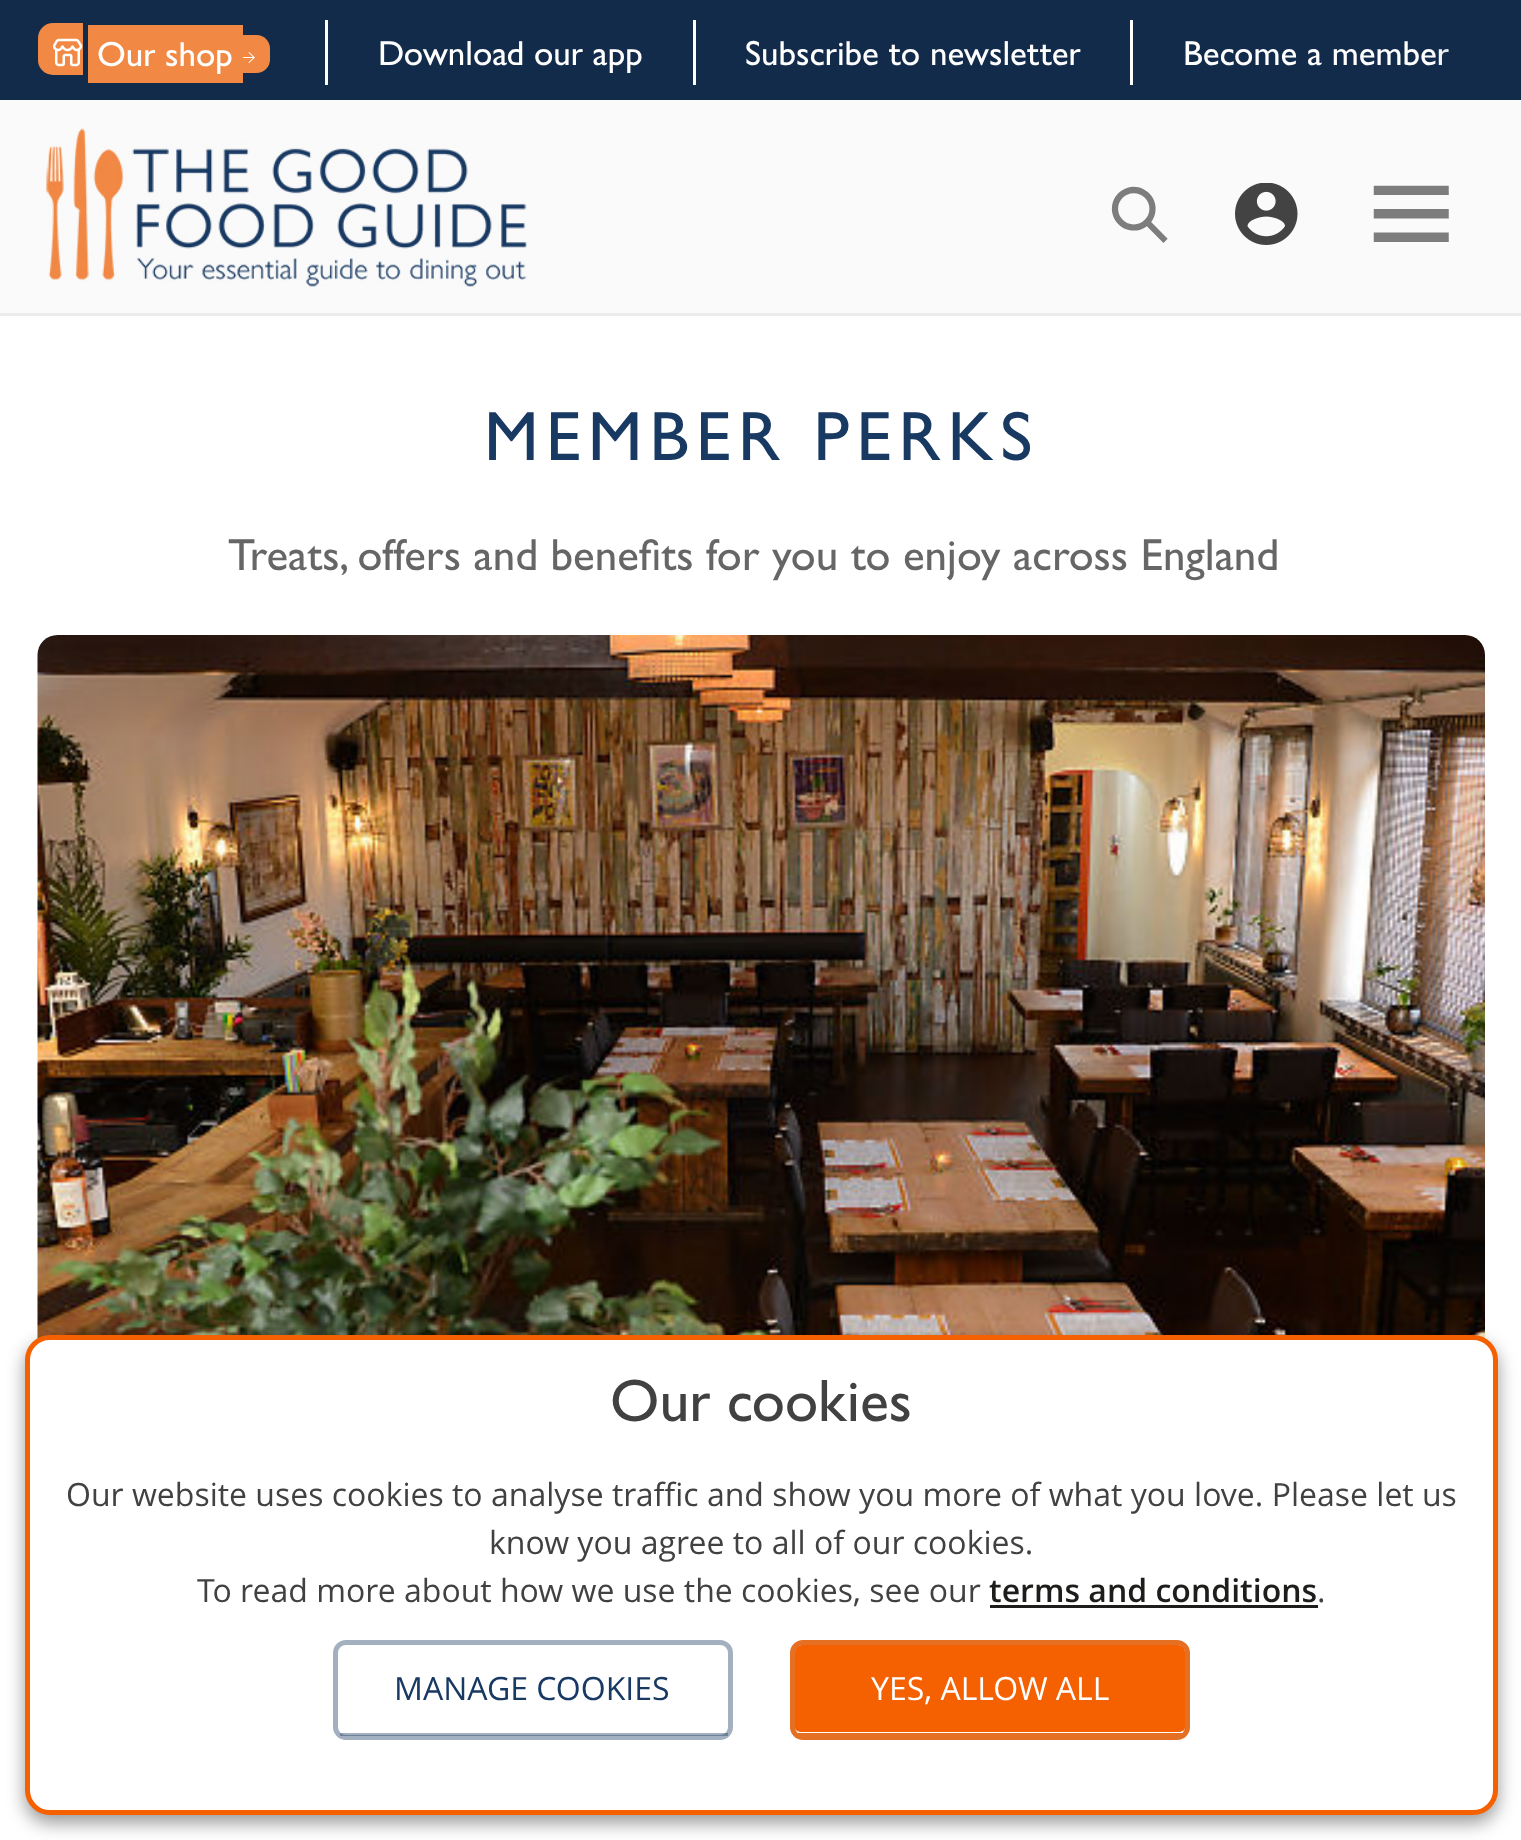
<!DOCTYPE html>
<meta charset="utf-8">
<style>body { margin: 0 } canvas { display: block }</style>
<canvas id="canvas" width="1521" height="1840"></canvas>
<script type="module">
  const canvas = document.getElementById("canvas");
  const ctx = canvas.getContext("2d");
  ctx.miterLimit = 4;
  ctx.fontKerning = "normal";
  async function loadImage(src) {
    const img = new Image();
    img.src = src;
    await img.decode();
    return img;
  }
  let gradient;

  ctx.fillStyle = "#ffffff";
  ctx.fillRect(0, 0, 1521, 1840);
  ctx.fillStyle = "#122b4a";
  ctx.fillRect(0, 0, 1521, 100);
  ctx.fillStyle = "#ffffff";
  ctx.fillRect(325, 20, 3, 65);
  ctx.fillStyle = "#f18844";
  ctx.beginPath();
  ctx.roundRect(38, 23, 45, 52, [15, 0, 0, 15]);
  ctx.fill();
  ctx.fillRect(88, 25, 155, 58);
  ctx.beginPath();
  ctx.roundRect(243, 35, 27, 38, [0, 13.5, 13.5, 0]);
  ctx.fill();
  ctx.drawImage(await loadImage("img1.png"), 53, 38, 30, 29);
  ctx.font = "35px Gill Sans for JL";
  ctx.fillStyle = "#ffffff";
  ctx.fillText("Our shop", 97, 66);
  ctx.drawImage(await loadImage("img2.png"), 243, 52, 12, 11);
  ctx.fillRect(693, 20, 3, 65);
  ctx.fillText("Download our app", 378, 65);
  ctx.fillRect(1130, 20, 3, 65);
  ctx.fillText("Subscribe to newsletter", 745, 65);
  ctx.fillText("Become a member", 1183, 65);
  gradient = ctx.createLinearGradient(1398, 50, 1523, 50);
  gradient.addColorStop(0.3, "rgba(18, 43, 74, 0)");
  gradient.addColorStop(1, "#122b4a");
  ctx.fillStyle = gradient;
  ctx.fillRect(1439, 49, 10, 16);
  ctx.fillStyle = "#fafafa";
  ctx.fillRect(0, 100, 1521, 213);
  ctx.fillStyle = "#ebebeb";
  ctx.fillRect(0, 313, 1521, 3);
  ctx.drawImage(await loadImage("img3.png"), 46, 128, 481, 159);
  ctx.drawImage(await loadImage("img4.png"), 1111, 186, 57, 57);
  ctx.drawImage(await loadImage("img5.png"), 1235, 183, 63, 62);
  ctx.drawImage(await loadImage("img6.png"), 1373, 185, 76, 57);
  ctx.letterSpacing = "7px";
  ctx.font = "70px Gill Sans";
  ctx.fillStyle = "#183962";
  ctx.fillText("MEMBER PERKS", 484, 460);
  ctx.letterSpacing = "0px";
  ctx.font = "45px Gill Sans";
  ctx.fillStyle = "#666666";
  ctx.fillText("Treats, offers and benefits for you to enjoy across England", 228, 570);
  ctx.drawImage(await loadImage("img7.png"), 37, 635, 1448, 704);
  ctx.fillStyle = "rgba(0, 0, 0, 0.4)";
  ctx.filter = "blur(9px)";
  ctx.beginPath();
  ctx.roundRect(25, 1343, 1473, 480, 25);
  ctx.fill();
  ctx.filter = "none";
  ctx.fillStyle = "#ffffff";
  ctx.beginPath();
  ctx.roundRect(27.5, 1337.5, 1468, 475, 22.5);
  ctx.fill();
  ctx.strokeStyle = "#f56000";
  ctx.lineWidth = 5;
  ctx.stroke();
  ctx.font = "60px Gill Sans for JL";
  ctx.fillStyle = "#414141";
  ctx.fillText("Our cookies", 610, 1421);
  ctx.font = "32px Open Sans";
  ctx.fillText("Our website uses cookies to analyse traffic and show you more of what you love. Please let us", 66, 1506);
  ctx.fillText("know you agree to all of our cookies.", 489, 1554);
  ctx.fillText("To read more about how we use the cookies, see our", 197, 1602);
  ctx.font = "600 32px Open Sans";
  ctx.fillStyle = "#1d1d1b";
  ctx.fillText("terms and conditions", 989, 1602);
  ctx.fillRect(990, 1605, 328, 3);
  ctx.font = "32px Open Sans";
  ctx.fillStyle = "#414141";
  ctx.fillText(".", 1317, 1602);
  ctx.beginPath();
  ctx.roundRect(335.5, 1642.5, 395, 95, 10.5);
  ctx.strokeStyle = "#a3b0c0";
  ctx.stroke();
  ctx.fillStyle = "rgba(24, 57, 98, 0.4)";
  ctx.fillRect(340, 1733, 388, 3);
  ctx.fillStyle = "#183962";
  ctx.fillText("MANAGE COOKIES", 394, 1700);
  ctx.fillStyle = "#f56000";
  ctx.beginPath();
  ctx.moveTo(802, 1645);
  ctx.lineTo(1178, 1645);
  ctx.bezierCurveTo(1182, 1645, 1185, 1648, 1185, 1652);
  ctx.lineTo(1185, 1728);
  ctx.bezierCurveTo(1185, 1730, 1182, 1732, 1178, 1732);
  ctx.lineTo(802, 1732);
  ctx.bezierCurveTo(798, 1732, 795, 1730, 795, 1728);
  ctx.lineTo(795, 1652);
  ctx.bezierCurveTo(795, 1648, 798, 1645, 802, 1645);
  ctx.closePath();
  ctx.fill();
  ctx.beginPath();
  ctx.roundRect(792.5, 1642.5, 395, 95, 10.5);
  ctx.strokeStyle = "#e57024";
  ctx.stroke();
  ctx.fillStyle = "#e57024";
  ctx.fillRect(798, 1733, 387, 2);
  ctx.fillStyle = "#ffffff";
  ctx.fillText("YES, ALLOW ALL", 871, 1700);
</script>
